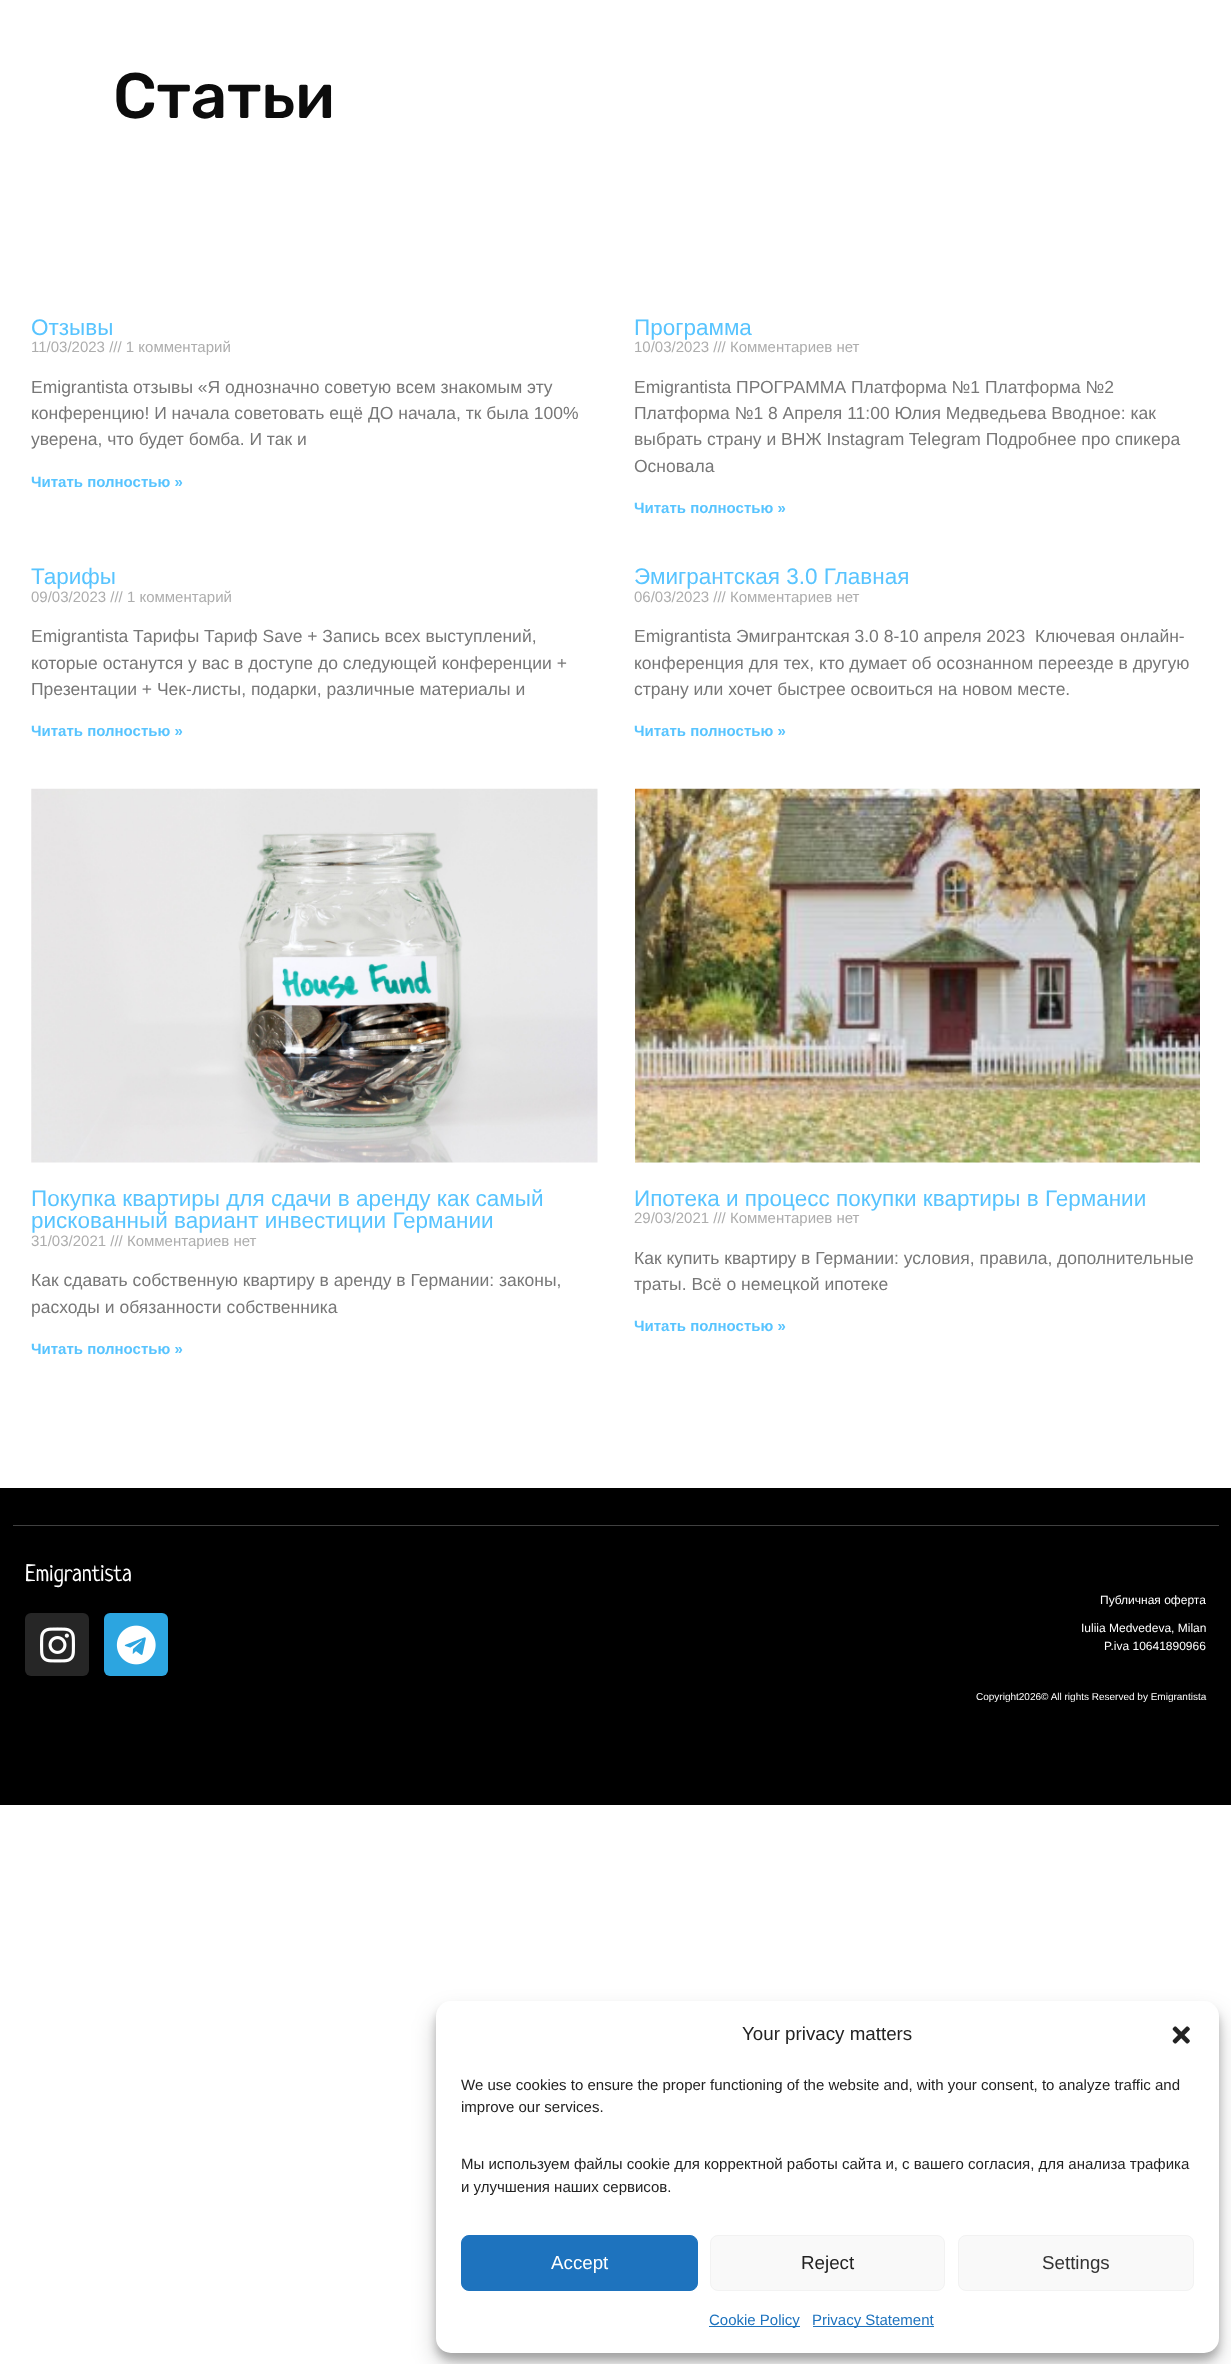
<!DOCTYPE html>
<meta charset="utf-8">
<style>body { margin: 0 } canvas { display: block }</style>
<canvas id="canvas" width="1231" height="2364"></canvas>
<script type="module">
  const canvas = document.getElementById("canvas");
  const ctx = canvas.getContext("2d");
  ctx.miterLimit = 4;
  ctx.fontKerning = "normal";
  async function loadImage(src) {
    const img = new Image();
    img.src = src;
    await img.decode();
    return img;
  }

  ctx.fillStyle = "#ffffff";
  ctx.fillRect(0, 0, 1231, 2364);
  ctx.font = "500 64px Rubik";
  ctx.fillStyle = "#0c0c0c";
  ctx.fillText("Статьи", 113, 118);
  ctx.font = "22.5px Liberation Sans";
  ctx.fillStyle = "#58c4ff";
  ctx.fillText("Отзывы", 31, 335);
  ctx.font = "15px Liberation Sans";
  ctx.fillStyle = "#adadad";
  ctx.fillText("11/03/2023 /// 1 комментарий", 31, 352);
  ctx.font = "17.5px Liberation Sans";
  ctx.fillStyle = "#777777";
  ctx.fillText("Emigrantista отзывы «Я однозначно советую всем знакомым эту", 31, 393);
  ctx.fillText("конференцию! И начала советовать ещё ДО начала, тк была 100%", 31, 419);
  ctx.fillText("уверена, что будет бомба. И так и", 31, 445);
  ctx.font = "bold 15px Liberation Sans";
  ctx.fillStyle = "#58c4ff";
  ctx.fillText("Читать полностью »", 31, 487);
  ctx.font = "22.5px Liberation Sans";
  ctx.fillText("Программа", 634, 335);
  ctx.font = "15px Liberation Sans";
  ctx.fillStyle = "#adadad";
  ctx.fillText("10/03/2023 /// Комментариев нет", 634, 352);
  ctx.font = "17.5px Liberation Sans";
  ctx.fillStyle = "#777777";
  ctx.fillText("Emigrantista ПРОГРАММА Платформа №1 Платформа №2", 634, 393);
  ctx.fillText("Платформа №1 8 Апреля 11:00 Юлия Медведьева Вводное: как", 634, 419);
  ctx.fillText("выбрать страну и ВНЖ Instagram Telegram Подробнее про спикера", 634, 445);
  ctx.fillText("Основала", 634, 472);
  ctx.font = "bold 15px Liberation Sans";
  ctx.fillStyle = "#58c4ff";
  ctx.fillText("Читать полностью »", 634, 513);
  ctx.font = "22.5px Liberation Sans";
  ctx.fillText("Тарифы", 31, 584);
  ctx.font = "15px Liberation Sans";
  ctx.fillStyle = "#adadad";
  ctx.fillText("09/03/2023 /// 1 комментарий", 31, 602);
  ctx.font = "17.5px Liberation Sans";
  ctx.fillStyle = "#777777";
  ctx.fillText("Emigrantista Тарифы Тариф Save + Запись всех выступлений,", 31, 642);
  ctx.fillText("которые останутся у вас в доступе до следующей конференции +", 31, 669);
  ctx.fillText("Презентации + Чек-листы, подарки, различные материалы и", 31, 695);
  ctx.font = "bold 15px Liberation Sans";
  ctx.fillStyle = "#58c4ff";
  ctx.fillText("Читать полностью »", 31, 736);
  ctx.font = "22.5px Liberation Sans";
  ctx.fillText("Эмигрантская 3.0 Главная", 634, 584);
  ctx.font = "15px Liberation Sans";
  ctx.fillStyle = "#adadad";
  ctx.fillText("06/03/2023 /// Комментариев нет", 634, 602);
  ctx.font = "17.5px Liberation Sans";
  ctx.fillStyle = "#777777";
  ctx.fillText("Emigrantista Эмигрантская 3.0 8-10 апреля 2023  Ключевая онлайн-", 634, 642);
  ctx.fillText("конференция для тех, кто думает об осознанном переезде в другую", 634, 669);
  ctx.fillText("страну или хочет быстрее освоиться на новом месте.", 634, 695);
  ctx.font = "bold 15px Liberation Sans";
  ctx.fillStyle = "#58c4ff";
  ctx.fillText("Читать полностью »", 634, 736);
  ctx.drawImage(await loadImage("img1.png"), 31, 788, 567, 375);
  ctx.font = "22.5px Liberation Sans";
  ctx.fillText("Покупка квартиры для сдачи в аренду как самый", 31, 1206);
  ctx.fillText("рискованный вариант инвестиции Германии", 31, 1228);
  ctx.font = "15px Liberation Sans";
  ctx.fillStyle = "#adadad";
  ctx.fillText("31/03/2021 /// Комментариев нет", 31, 1246);
  ctx.font = "17.5px Liberation Sans";
  ctx.fillStyle = "#777777";
  ctx.fillText("Как сдавать собственную квартиру в аренду в Германии: законы,", 31, 1286);
  ctx.fillText("расходы и обязанности собственника", 31, 1313);
  ctx.font = "bold 15px Liberation Sans";
  ctx.fillStyle = "#58c4ff";
  ctx.fillText("Читать полностью »", 31, 1354);
  ctx.drawImage(await loadImage("img2.png"), 635, 788, 565, 375);
  ctx.font = "22.5px Liberation Sans";
  ctx.fillText("Ипотека и процесс покупки квартиры в Германии", 634, 1206);
  ctx.font = "15px Liberation Sans";
  ctx.fillStyle = "#adadad";
  ctx.fillText("29/03/2021 /// Комментариев нет", 634, 1223);
  ctx.font = "17.5px Liberation Sans";
  ctx.fillStyle = "#777777";
  ctx.fillText("Как купить квартиру в Германии: условия, правила, дополнительные", 634, 1264);
  ctx.fillText("траты. Всё о немецкой ипотеке", 634, 1290);
  ctx.font = "bold 15px Liberation Sans";
  ctx.fillStyle = "#58c4ff";
  ctx.fillText("Читать полностью »", 634, 1331);
  ctx.fillStyle = "#000000";
  ctx.fillRect(0, 1488, 1231, 317);
  ctx.fillStyle = "#404040";
  ctx.fillRect(13, 1525, 1206, 1);
  ctx.font = "23.75px Neucha";
  ctx.fillStyle = "#ffffff";
  ctx.fillText("Emigrantista", 25, 1581);
  ctx.fillStyle = "#262626";
  ctx.beginPath();
  ctx.roundRect(25, 1613, 64, 63, 6);
  ctx.fill();
  ctx.drawImage(await loadImage("img3.png"), 40, 1627, 35, 36);
  ctx.fillStyle = "#2ca5e0";
  ctx.beginPath();
  ctx.roundRect(104, 1613, 64, 63, 6);
  ctx.fill();
  ctx.drawImage(await loadImage("img4.png"), 116, 1625, 40, 40);
  ctx.font = "12px Liberation Sans";
  ctx.fillStyle = "#ffffff";
  ctx.fillText("Публичная оферта", 1100, 1604);
  ctx.fillText("Iuliia Medvedeva, Milan", 1081, 1632);
  ctx.fillText("P.iva 10641890966", 1104, 1650);
  ctx.font = "10px Liberation Sans";
  ctx.fillText("Copyright2026© All rights Reserved by Emigrantista", 976, 1700);
  ctx.fillStyle = "rgba(0, 0, 0, 0.23)";
  ctx.filter = "blur(4px)";
  ctx.beginPath();
  ctx.roundRect(436, 2009, 783, 351, 15);
  ctx.fill();
  ctx.filter = "none";
  ctx.fillStyle = "rgba(0, 0, 0, 0.19)";
  ctx.filter = "blur(12.5px)";
  ctx.beginPath();
  ctx.roundRect(436, 2014, 783, 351, 15);
  ctx.fill();
  ctx.filter = "none";
  ctx.fillStyle = "#ffffff";
  ctx.beginPath();
  ctx.roundRect(436, 2001, 783, 352, 15);
  ctx.fill();
  ctx.font = "18.75px Liberation Sans";
  ctx.fillStyle = "#222222";
  ctx.fillText("Your privacy matters", 742, 2040);
  ctx.drawImage(await loadImage("img5.png"), 1172, 2026, 18, 18);
  ctx.font = "15px Liberation Sans";
  ctx.fillText("We use cookies to ensure the proper functioning of the website and, with your consent, to analyze traffic and", 461, 2090);
  ctx.fillText("improve our services.", 461, 2112);
  ctx.fillText("Мы используем файлы cookie для корректной работы сайта и, с вашего согласия, для анализа трафика", 461, 2169);
  ctx.fillText("и улучшения наших сервисов.", 461, 2192);
  ctx.fillStyle = "#1e73be";
  ctx.beginPath();
  ctx.roundRect(461.5, 2235.5, 236, 55, 7.5);
  ctx.fill();
  ctx.strokeStyle = "#1e73be";
  ctx.stroke();
  ctx.font = "18.75px Liberation Sans";
  ctx.fillStyle = "#ffffff";
  ctx.fillText("Accept", 551, 2269);
  ctx.fillStyle = "#f9f9f9";
  ctx.beginPath();
  ctx.roundRect(710.5, 2235.5, 234, 55, 7.5);
  ctx.fill();
  ctx.strokeStyle = "#f2f2f2";
  ctx.stroke();
  ctx.fillStyle = "#222222";
  ctx.fillText("Reject", 801, 2269);
  ctx.fillStyle = "#f9f9f9";
  ctx.beginPath();
  ctx.roundRect(958.5, 2235.5, 235, 55, 7.5);
  ctx.fill();
  ctx.stroke();
  ctx.fillStyle = "#333333";
  ctx.fillText("Settings", 1042, 2269);
  ctx.fillStyle = "#1e73be";
  ctx.fillRect(709, 2326, 91, 1);
  ctx.font = "15px Liberation Sans";
  ctx.fillText("Cookie Policy", 709, 2325);
  ctx.fillRect(813, 2326, 121, 1);
  ctx.fillText("Privacy Statement", 812, 2325);
</script>
